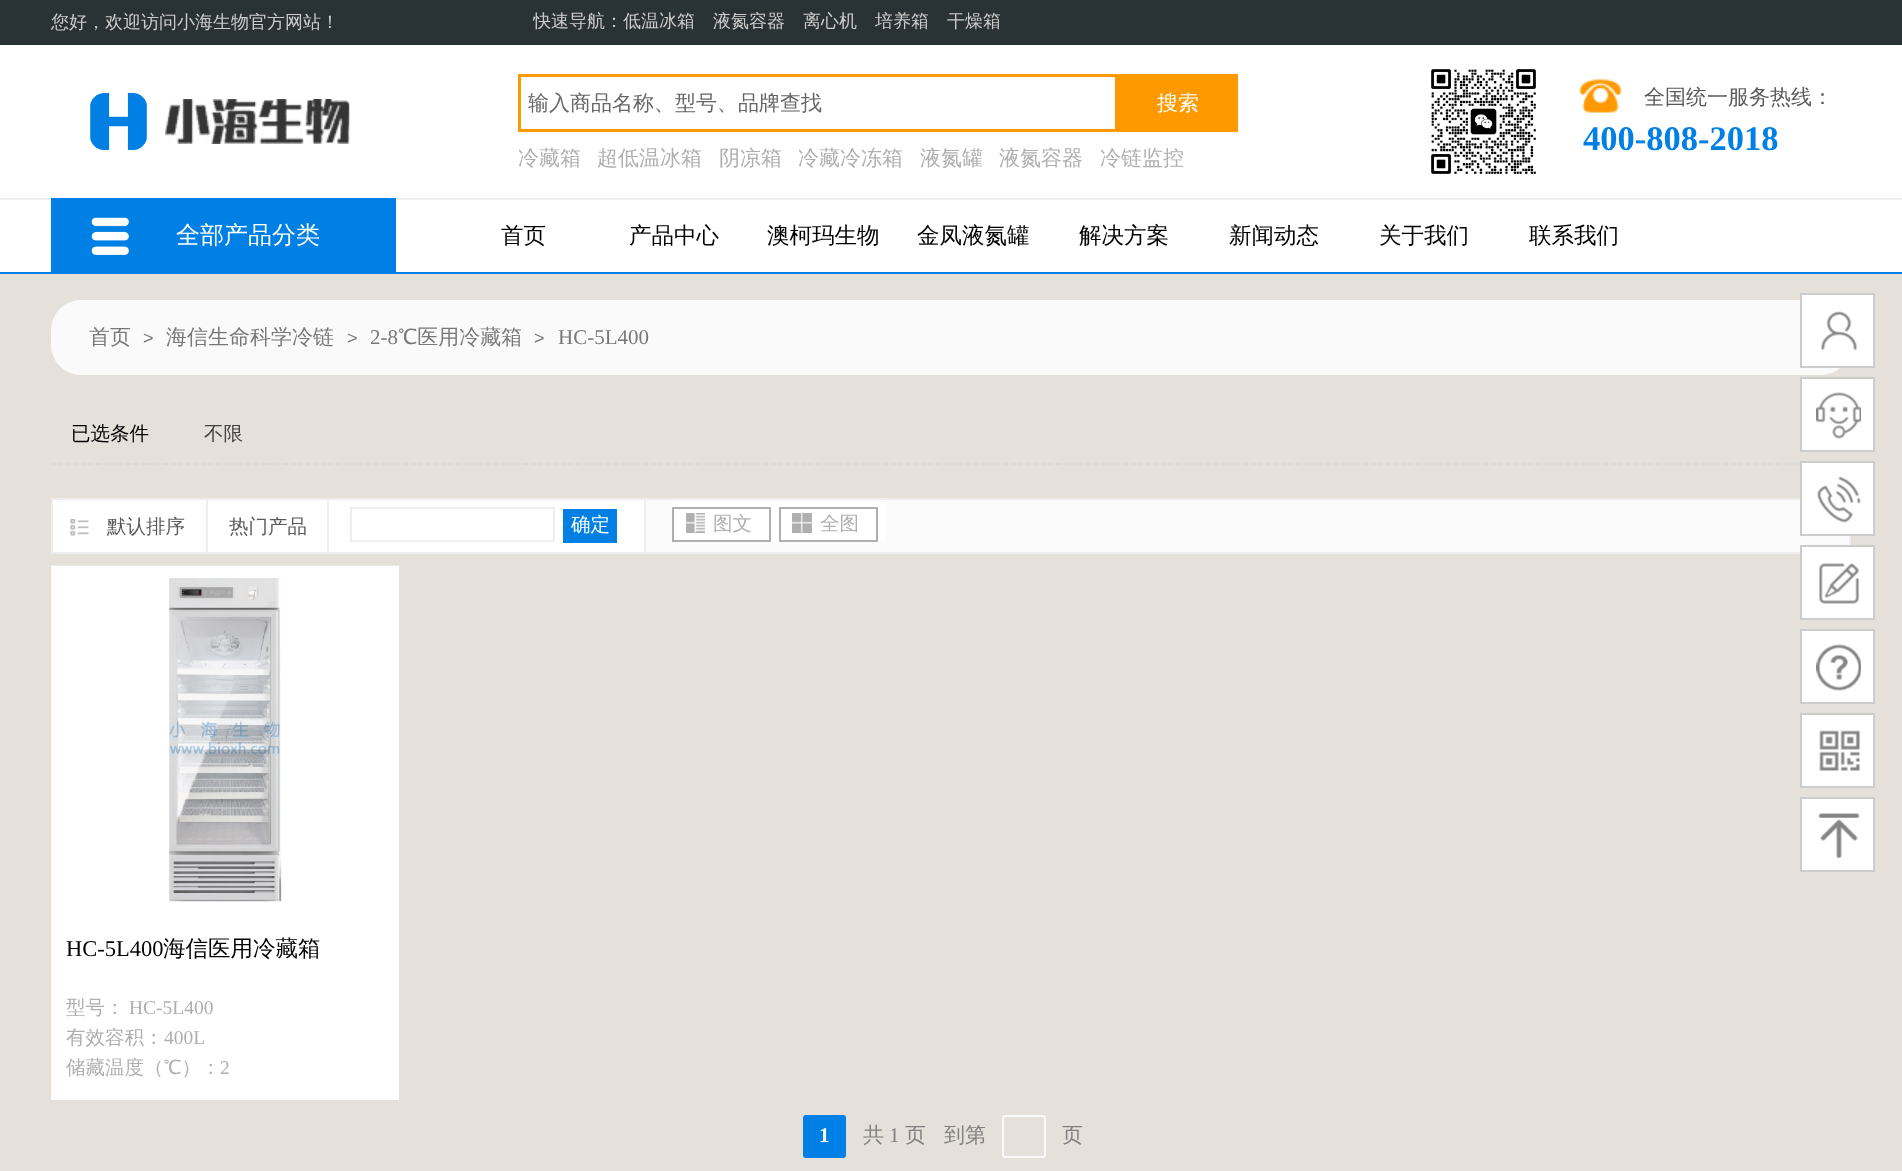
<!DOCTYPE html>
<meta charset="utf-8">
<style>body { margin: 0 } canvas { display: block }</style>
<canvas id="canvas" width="1902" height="1171"></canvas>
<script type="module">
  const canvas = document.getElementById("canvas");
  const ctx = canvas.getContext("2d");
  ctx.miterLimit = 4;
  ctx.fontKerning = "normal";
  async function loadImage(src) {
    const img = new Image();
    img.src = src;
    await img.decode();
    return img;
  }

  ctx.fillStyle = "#e6e0db";
  ctx.fillRect(0, 0, 1902, 1171);
  ctx.fillStyle = "#293235";
  ctx.fillRect(0, 0, 1902, 45);
  ctx.font = "500 18px WenQuanYi Zen Hei";
  ctx.fillStyle = "#cccccc";
  ctx.fillText("您好，欢迎访问小海生物官方网站！", 51, 28);
  ctx.save();
  ctx.beginPath();
  ctx.rect(533, 9, 1318, 27);
  ctx.clip();
  ctx.fillText("快速导航：低温", 533, 27);
  ctx.restore();
  ctx.fillText("冰箱", 659, 27);
  ctx.fillText("液氮容器　离心机　培养箱　干燥箱", 713, 27);
  ctx.fillStyle = "#ffffff";
  ctx.fillRect(0, 45, 1902, 227);
  ctx.drawImage(await loadImage("img1.png"), 90, 93, 57, 57);
  ctx.drawImage(await loadImage("img2.png"), 165, 99, 185, 45);
  ctx.strokeStyle = "#ff9900";
  ctx.lineWidth = 3;
  ctx.strokeRect(519.5, 75.5, 597, 55);
  ctx.font = "500 21px WenQuanYi Zen Hei";
  ctx.fillStyle = "#666666";
  ctx.fillText("输入商品名称、型号、品牌查找", 528, 110);
  ctx.fillStyle = "#ff9900";
  ctx.fillRect(1118, 74, 120, 58);
  ctx.fillStyle = "#ffffff";
  ctx.fillText("搜索", 1157, 110);
  ctx.fillStyle = "#afafaf";
  ctx.fillText("冷藏箱", 518, 165);
  ctx.fillText("超低温冰箱", 597, 165);
  ctx.fillText("阴凉箱", 719, 165);
  ctx.fillText("冷藏冷冻箱", 798, 165);
  ctx.fillText("液氮罐", 920, 165);
  ctx.fillText("液氮容器", 999, 165);
  ctx.fillText("冷链监控", 1100, 165);
  ctx.drawImage(await loadImage("img3.png"), 1431, 69, 105, 105);
  ctx.drawImage(await loadImage("img4.png"), 1579, 79, 43, 34);
  ctx.fillStyle = "#5a5a5a";
  ctx.fillText("全国统一服务热线：", 1644, 104);
  ctx.font = "bold 34.5px Liberation Serif";
  ctx.fillStyle = "#0080e4";
  ctx.fillText("400-808-2018", 1583, 150);
  ctx.fillStyle = "#eeeeee";
  ctx.fillRect(0, 198, 1902, 2);
  ctx.fillStyle = "#0080e4";
  ctx.fillRect(51, 198, 345, 74);
  ctx.drawImage(await loadImage("img5.png"), 91, 217, 38, 38);
  ctx.font = "500 24px WenQuanYi Zen Hei";
  ctx.fillStyle = "#ffffff";
  ctx.fillText("全部产品分类", 176, 243);
  ctx.font = "500 22.5px WenQuanYi Zen Hei";
  ctx.fillStyle = "#000000";
  ctx.fillText("首页", 501, 243);
  ctx.fillText("产品中心", 629, 243);
  ctx.fillText("澳柯玛生物", 767, 243);
  ctx.fillText("金凤液氮罐", 917, 243);
  ctx.fillText("解决方案", 1079, 243);
  ctx.fillText("新闻动态", 1229, 243);
  ctx.fillText("关于我们", 1379, 243);
  ctx.fillText("联系我们", 1529, 243);
  ctx.fillStyle = "#0080e4";
  ctx.fillRect(0, 272, 1902, 2);
  ctx.fillStyle = "#fbfafa";
  ctx.beginPath();
  ctx.roundRect(51, 300, 1800, 75, 30);
  ctx.fill();
  ctx.font = "500 21px WenQuanYi Zen Hei";
  ctx.fillStyle = "#797878";
  ctx.fillText("首页", 89, 344);
  ctx.font = "18px Liberation Sans";
  ctx.fillText(">", 143, 344);
  ctx.font = "500 21px WenQuanYi Zen Hei";
  ctx.fillText("海信生命科学冷链", 166, 344);
  ctx.font = "18px Liberation Sans";
  ctx.fillText(">", 347, 344);
  ctx.font = "21px Liberation Serif";
  ctx.fillText("2-8", 370, 344);
  ctx.font = "500 21px WenQuanYi Zen Hei";
  ctx.fillText("℃医用冷藏箱", 398, 344);
  ctx.font = "18px Liberation Sans";
  ctx.fillText(">", 534, 344);
  ctx.font = "21px Liberation Serif";
  ctx.fillText("HC-5L400", 558, 344);
  ctx.save();
  ctx.beginPath();
  ctx.roundRect(51, 402, 1800, 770, 30);
  ctx.clip();
  ctx.beginPath();
  ctx.moveTo(51, 464);
  ctx.lineTo(1878, 464);
  ctx.strokeStyle = "#d8d8d8";
  ctx.lineWidth = 1.5;
  ctx.setLineDash([4.5, 3]);
  ctx.stroke();
  ctx.restore();
  ctx.font = "500 19.5px WenQuanYi Zen Hei";
  ctx.fillStyle = "#000000";
  ctx.fillText("已选条件", 71, 440);
  ctx.fillStyle = "#434343";
  ctx.fillText("不限", 204, 440);
  ctx.fillStyle = "#fbfbfb";
  ctx.fillRect(646, 500, 1203, 52);
  ctx.strokeStyle = "#eeeeee";
  ctx.lineWidth = 2;
  ctx.strokeRect(52, 499, 1798, 54);
  ctx.fillStyle = "#ffffff";
  ctx.fillRect(53, 500, 591, 52);
  ctx.drawImage(await loadImage("img6.png"), 70, 519, 19, 17);
  ctx.fillStyle = "#eeeeee";
  ctx.fillRect(206, 500, 2, 52);
  ctx.fillStyle = "#5a5a5a";
  ctx.fillText("默认排序", 107, 533);
  ctx.fillStyle = "#eeeeee";
  ctx.fillRect(327, 500, 2, 52);
  ctx.fillStyle = "#5a5a5a";
  ctx.fillText("热门产品", 229, 533);
  ctx.strokeRect(351, 508, 203, 33);
  ctx.fillStyle = "#eeeeee";
  ctx.fillRect(644, 500, 2, 52);
  ctx.fillStyle = "#0080e4";
  ctx.fillRect(563, 509, 54, 34);
  ctx.fillStyle = "#ffffff";
  ctx.fillText("确定", 571, 531);
  ctx.fillRect(672, 500, 213, 42);
  ctx.strokeStyle = "#afafaf";
  ctx.strokeRect(673, 508, 97, 33);
  ctx.fillStyle = "#afafaf";
  ctx.fillRect(686, 513, 19, 20);
  ctx.drawImage(await loadImage("img7.png"), 686, 513, 19, 20);
  ctx.fillText("图文", 713, 530);
  ctx.strokeRect(780, 508, 97, 33);
  ctx.fillRect(792, 513, 20, 20);
  ctx.drawImage(await loadImage("img8.png"), 792, 513, 20, 20);
  ctx.fillText("全图", 820, 530);
  ctx.fillStyle = "#ffffff";
  ctx.fillRect(51, 902, 348, 198);
  ctx.drawImage(await loadImage("img9.png"), 51, 565, 348, 337);
  ctx.font = "22.5px Liberation Serif";
  ctx.fillStyle = "#000000";
  ctx.fillText("HC-5L400", 66, 956);
  ctx.font = "500 22.5px WenQuanYi Zen Hei";
  ctx.fillText("海信医用冷藏箱", 163, 956);
  ctx.font = "500 19.5px WenQuanYi Zen Hei";
  ctx.fillStyle = "#afafaf";
  ctx.fillText("型号：", 66, 1014);
  ctx.font = "19.5px Liberation Serif";
  ctx.fillText("HC-5L400", 129, 1014);
  ctx.font = "500 19.5px WenQuanYi Zen Hei";
  ctx.fillText("有效容积：", 66, 1044);
  ctx.font = "19.5px Liberation Serif";
  ctx.fillText("400L", 164, 1044);
  ctx.font = "500 19.5px WenQuanYi Zen Hei";
  ctx.fillText("储藏温度（℃）：", 66, 1074);
  ctx.font = "19.5px Liberation Serif";
  ctx.fillText("2", 220, 1074);
  ctx.fillStyle = "#0080e4";
  ctx.beginPath();
  ctx.roundRect(804, 1116, 41, 41, 2);
  ctx.fill();
  ctx.strokeStyle = "#0080e4";
  ctx.stroke();
  ctx.font = "bold 21px Liberation Serif";
  ctx.fillStyle = "#ffffff";
  ctx.fillText("1", 819, 1142);
  ctx.font = "500 21px WenQuanYi Zen Hei";
  ctx.fillStyle = "#808080";
  ctx.fillText("共", 863, 1142);
  ctx.font = "21px Liberation Serif";
  ctx.fillText("1", 889, 1142);
  ctx.font = "500 21px WenQuanYi Zen Hei";
  ctx.fillText("页", 905, 1142);
  ctx.fillText("到第", 944, 1142);
  ctx.beginPath();
  ctx.roundRect(1003, 1116, 42, 41, 2);
  ctx.strokeStyle = "#f8f8f8";
  ctx.stroke();
  ctx.fillText("页", 1062, 1142);
  ctx.fillStyle = "#ffffff";
  ctx.beginPath();
  ctx.rect(1801, 294, 73, 73);
  ctx.fill();
  ctx.strokeStyle = "#cccccc";
  ctx.stroke();
  ctx.drawImage(await loadImage("img10.png"), 1821, 311, 36, 40);
  ctx.beginPath();
  ctx.rect(1801, 378, 73, 73);
  ctx.fill();
  ctx.stroke();
  ctx.drawImage(await loadImage("img11.png"), 1816, 392, 45, 47);
  ctx.beginPath();
  ctx.rect(1801, 462, 73, 73);
  ctx.fill();
  ctx.stroke();
  ctx.drawImage(await loadImage("img12.png"), 1817, 476, 44, 47);
  ctx.beginPath();
  ctx.rect(1801, 546, 73, 73);
  ctx.fill();
  ctx.stroke();
  ctx.drawImage(await loadImage("img13.png"), 1819, 563, 41, 41);
  ctx.beginPath();
  ctx.rect(1801, 630, 73, 73);
  ctx.fill();
  ctx.stroke();
  ctx.drawImage(await loadImage("img14.png"), 1816, 644, 45, 47);
  ctx.beginPath();
  ctx.rect(1801, 714, 73, 73);
  ctx.fill();
  ctx.stroke();
  ctx.drawImage(await loadImage("img15.png"), 1819, 730, 41, 41);
  ctx.beginPath();
  ctx.rect(1801, 798, 73, 73);
  ctx.fill();
  ctx.stroke();
  ctx.drawImage(await loadImage("img16.png"), 1818, 813, 42, 45);
</script>
